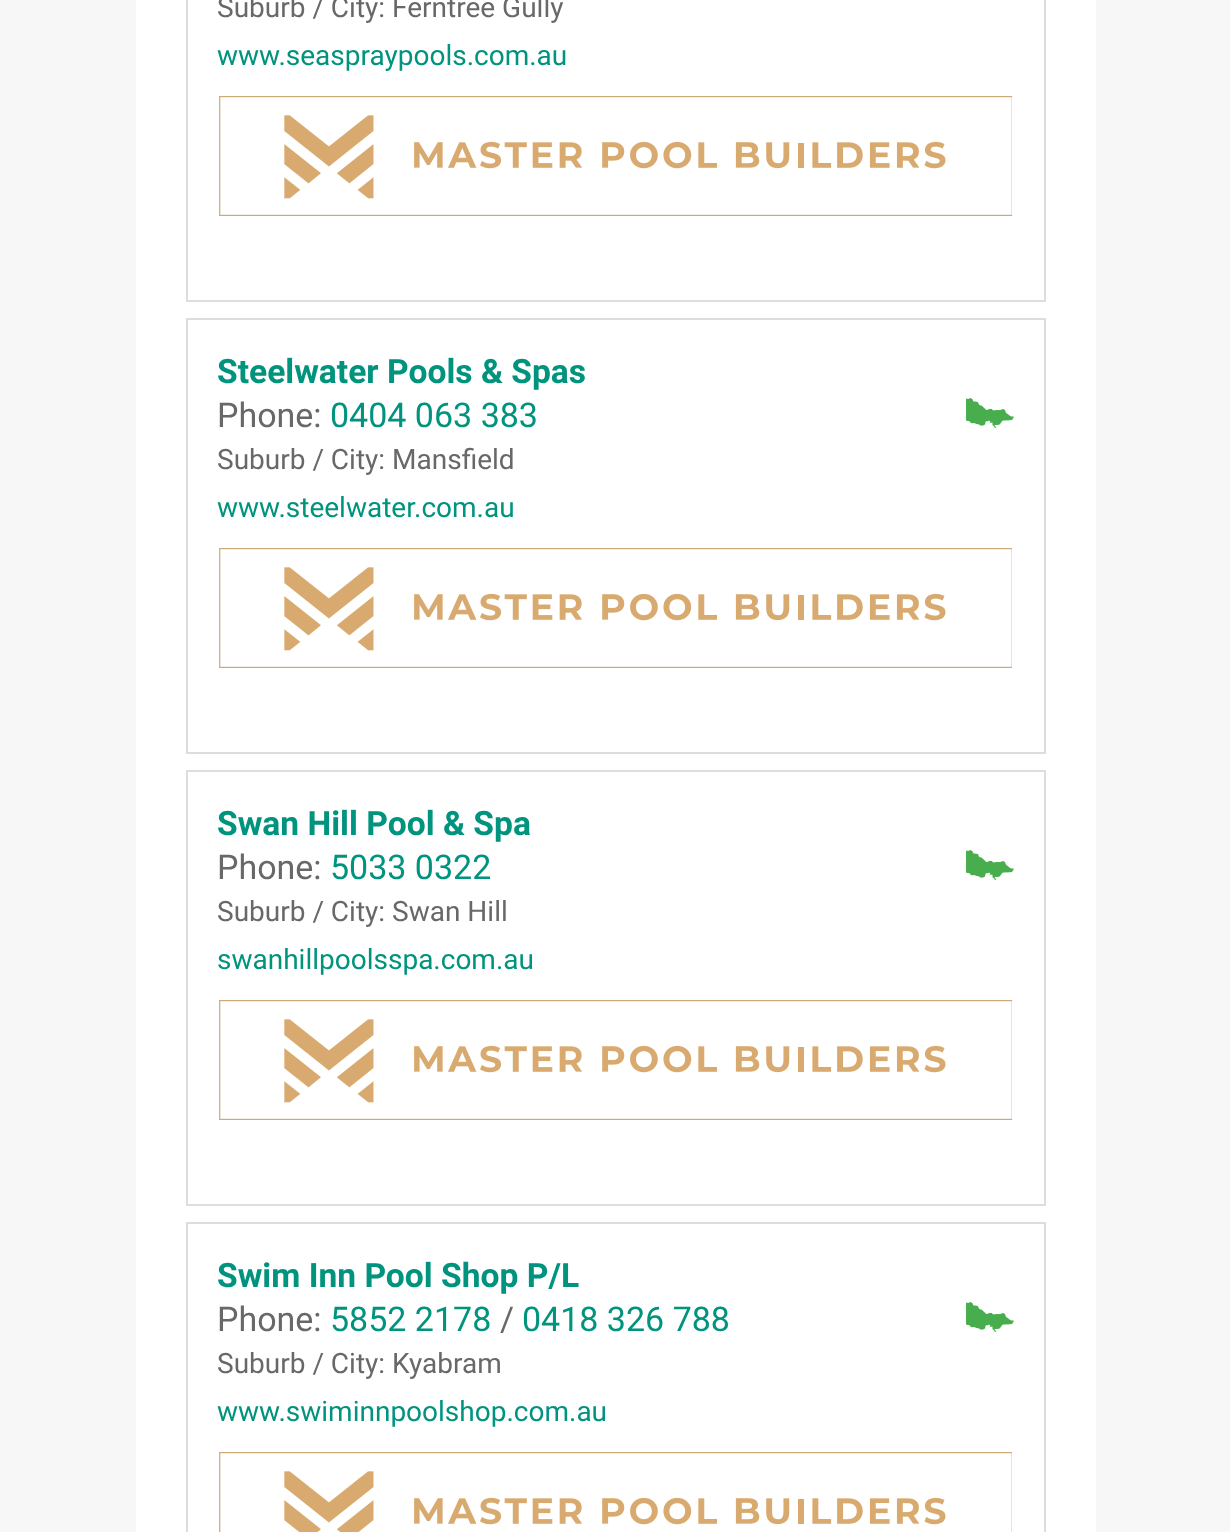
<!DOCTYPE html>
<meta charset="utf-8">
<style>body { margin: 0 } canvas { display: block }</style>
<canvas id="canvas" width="1230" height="1532"></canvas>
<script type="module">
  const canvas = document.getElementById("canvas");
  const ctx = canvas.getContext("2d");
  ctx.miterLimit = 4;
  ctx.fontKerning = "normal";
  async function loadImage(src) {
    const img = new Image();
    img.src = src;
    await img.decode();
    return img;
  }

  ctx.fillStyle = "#f7f7f7";
  ctx.fillRect(0, 0, 1230, 1532);
  ctx.fillStyle = "#ffffff";
  ctx.fillRect(136, 0, 960, 1532);
  ctx.strokeStyle = "#dddddd";
  ctx.lineWidth = 2;
  ctx.strokeRect(187, -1, 858, 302);
  ctx.font = "28px Roboto";
  ctx.fillStyle = "#686868";
  ctx.fillText("Suburb / City: Ferntree Gully", 217, 17);
  ctx.fillStyle = "#00937e";
  ctx.fillText("www.seaspraypools.com.au", 217, 65);
  ctx.drawImage(await loadImage("img1.png"), 219, 96, 793, 120);
  ctx.strokeRect(187, 319, 858, 434);
  ctx.font = "bold 33.6px Roboto";
  ctx.fillText("Steelwater Pools & Spas", 217, 383);
  ctx.font = "34px Roboto";
  ctx.fillStyle = "#686868";
  ctx.fillText("Phone:", 217, 427);
  ctx.fillStyle = "#00937e";
  ctx.fillText("0404 063 383", 330, 427);
  ctx.drawImage(await loadImage("img2.png"), 966, 398, 48, 30);
  ctx.font = "28px Roboto";
  ctx.fillStyle = "#686868";
  ctx.fillText("Suburb / City: Mansfield", 217, 469);
  ctx.fillStyle = "#00937e";
  ctx.fillText("www.steelwater.com.au", 217, 517);
  ctx.drawImage(await loadImage("img1.png"), 219, 548, 793, 120);
  ctx.strokeRect(187, 771, 858, 434);
  ctx.font = "bold 33.6px Roboto";
  ctx.fillText("Swan Hill Pool & Spa", 217, 835);
  ctx.font = "34px Roboto";
  ctx.fillStyle = "#686868";
  ctx.fillText("Phone:", 217, 879);
  ctx.fillStyle = "#00937e";
  ctx.fillText("5033 0322", 330, 879);
  ctx.drawImage(await loadImage("img2.png"), 966, 850, 48, 30);
  ctx.font = "28px Roboto";
  ctx.fillStyle = "#686868";
  ctx.fillText("Suburb / City: Swan Hill", 217, 921);
  ctx.fillStyle = "#00937e";
  ctx.fillText("swanhillpoolsspa.com.au", 217, 969);
  ctx.drawImage(await loadImage("img1.png"), 219, 1000, 793, 120);
  ctx.strokeRect(187, 1223, 858, 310);
  ctx.font = "bold 33.6px Roboto";
  ctx.fillText("Swim Inn Pool Shop P/L", 217, 1287);
  ctx.font = "34px Roboto";
  ctx.fillStyle = "#686868";
  ctx.fillText("Phone:", 217, 1331);
  ctx.fillStyle = "#00937e";
  ctx.fillText("5852 2178", 330, 1331);
  ctx.fillStyle = "#686868";
  ctx.fillText("/", 500, 1331);
  ctx.fillStyle = "#00937e";
  ctx.fillText("0418 326 788", 522, 1331);
  ctx.drawImage(await loadImage("img2.png"), 966, 1302, 48, 30);
  ctx.font = "28px Roboto";
  ctx.fillStyle = "#686868";
  ctx.fillText("Suburb / City: Kyabram", 217, 1373);
  ctx.fillStyle = "#00937e";
  ctx.fillText("www.swiminnpoolshop.com.au", 217, 1421);
  ctx.drawImage(await loadImage("img3.png"), 219, 1452, 793, 80);
</script>
